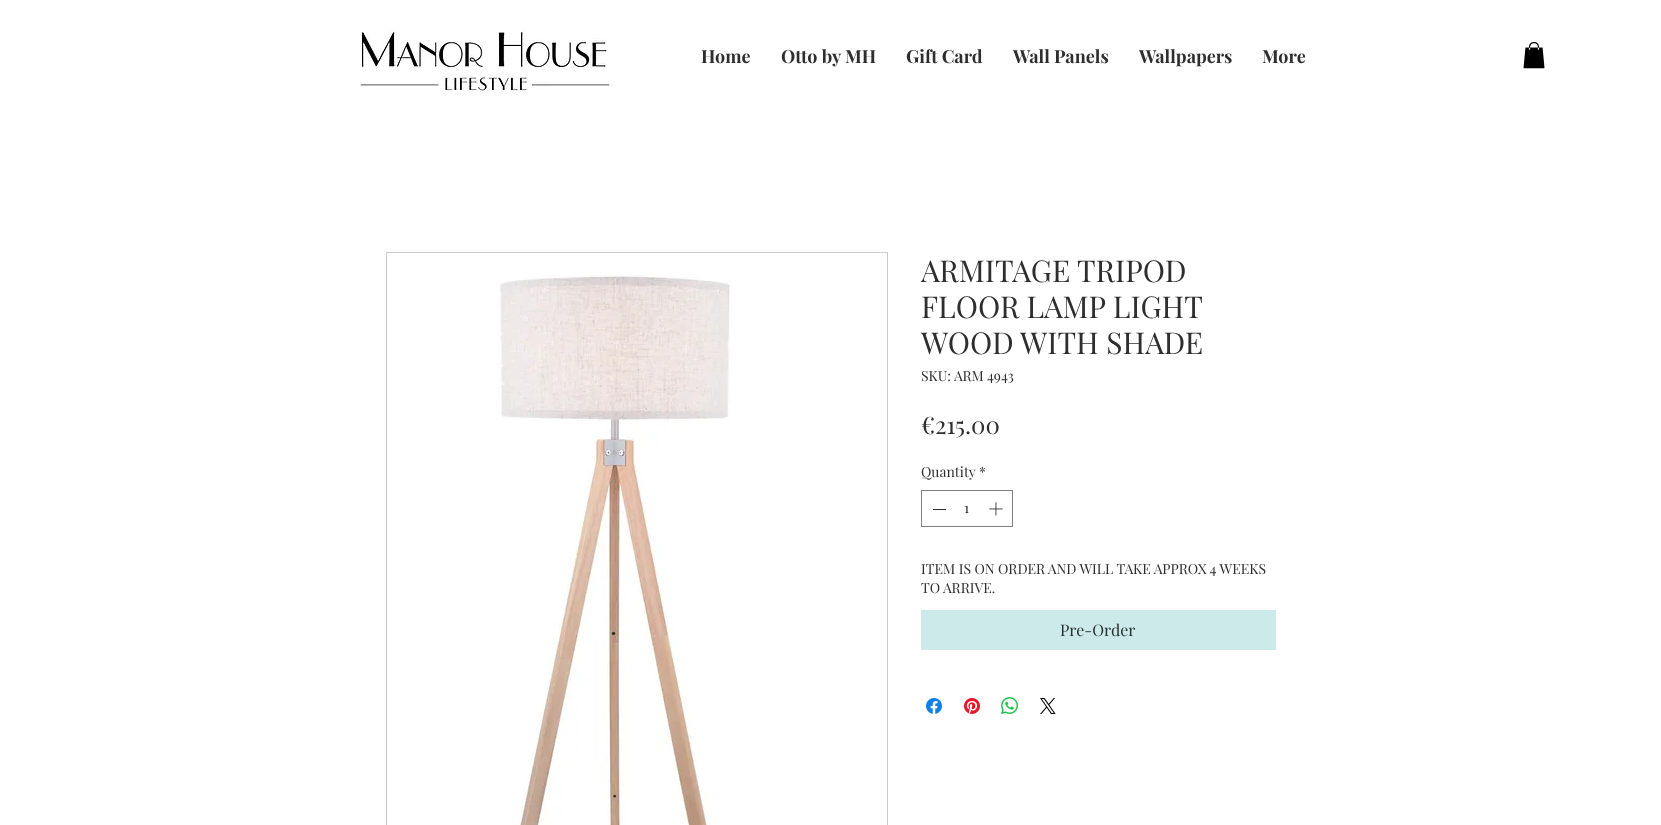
<!DOCTYPE html>
<meta charset="utf-8">
<style>body { margin: 0 } canvas { display: block }</style>
<canvas id="canvas" width="1661" height="825"></canvas>
<script type="module">
  const canvas = document.getElementById("canvas");
  const ctx = canvas.getContext("2d");
  ctx.miterLimit = 4;
  ctx.fontKerning = "normal";
  async function loadImage(src) {
    const img = new Image();
    img.src = src;
    await img.decode();
    return img;
  }

  ctx.fillStyle = "#ffffff";
  ctx.fillRect(0, 0, 1661, 825);
  ctx.drawImage(await loadImage("img1.png"), 360, 30, 253, 64);
  ctx.font = "bold 18px Playfair Display";
  ctx.fillStyle = "#2f2e2e";
  ctx.fillText("Home", 701, 63);
  ctx.fillText("Otto by MH", 781, 63);
  ctx.fillText("Gift Card", 906, 63);
  ctx.fillText("Wall Panels", 1013, 63);
  ctx.fillText("Wallpapers", 1139, 63);
  ctx.fillText("More", 1262, 63);
  ctx.drawImage(await loadImage("img2.png"), 1523, 42, 22, 27);
  ctx.strokeStyle = "#cccccc";
  ctx.strokeRect(386.5, 252.5, 501, 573);
  ctx.drawImage(await loadImage("img3.png"), 499, 275, 232, 550);
  ctx.font = "30px Playfair Display";
  ctx.fillText("ARMITAGE TRIPOD", 921, 282);
  ctx.fillText("FLOOR LAMP LIGHT", 921, 318);
  ctx.fillText("WOOD WITH SHADE", 921, 354);
  ctx.font = "14px Playfair Display";
  ctx.fillText("SKU: ARM 4943", 921, 381);
  ctx.font = "24px Playfair Display";
  ctx.fillText("€215.00", 921, 434);
  ctx.font = "14px Playfair Display";
  ctx.fillText("Quantity", 921, 477);
  ctx.fillText("*", 979, 477);
  ctx.strokeStyle = "#828282";
  ctx.strokeRect(921.5, 490.5, 91, 36);
  ctx.fillRect(933, 509, 13, 1);
  ctx.fillText("1", 964, 513);
  ctx.drawImage(await loadImage("img4.png"), 989, 502, 14, 14);
  ctx.fillText("ITEM IS ON ORDER AND WILL TAKE APPROX 4 WEEKS", 921, 574);
  ctx.fillText("TO ARRIVE.", 921, 593);
  ctx.fillStyle = "#cceaea";
  ctx.fillRect(921, 610, 355, 40);
  ctx.font = "16px Playfair Display";
  ctx.fillStyle = "#292f2f";
  ctx.fillText("Pre-Order", 1060, 636);
  ctx.drawImage(await loadImage("img5.png"), 926, 698, 16, 16);
  ctx.drawImage(await loadImage("img6.png"), 964, 698, 16, 16);
  ctx.drawImage(await loadImage("img7.png"), 1001, 697, 17, 17);
  ctx.drawImage(await loadImage("img8.png"), 1040, 698, 16, 16);
</script>
